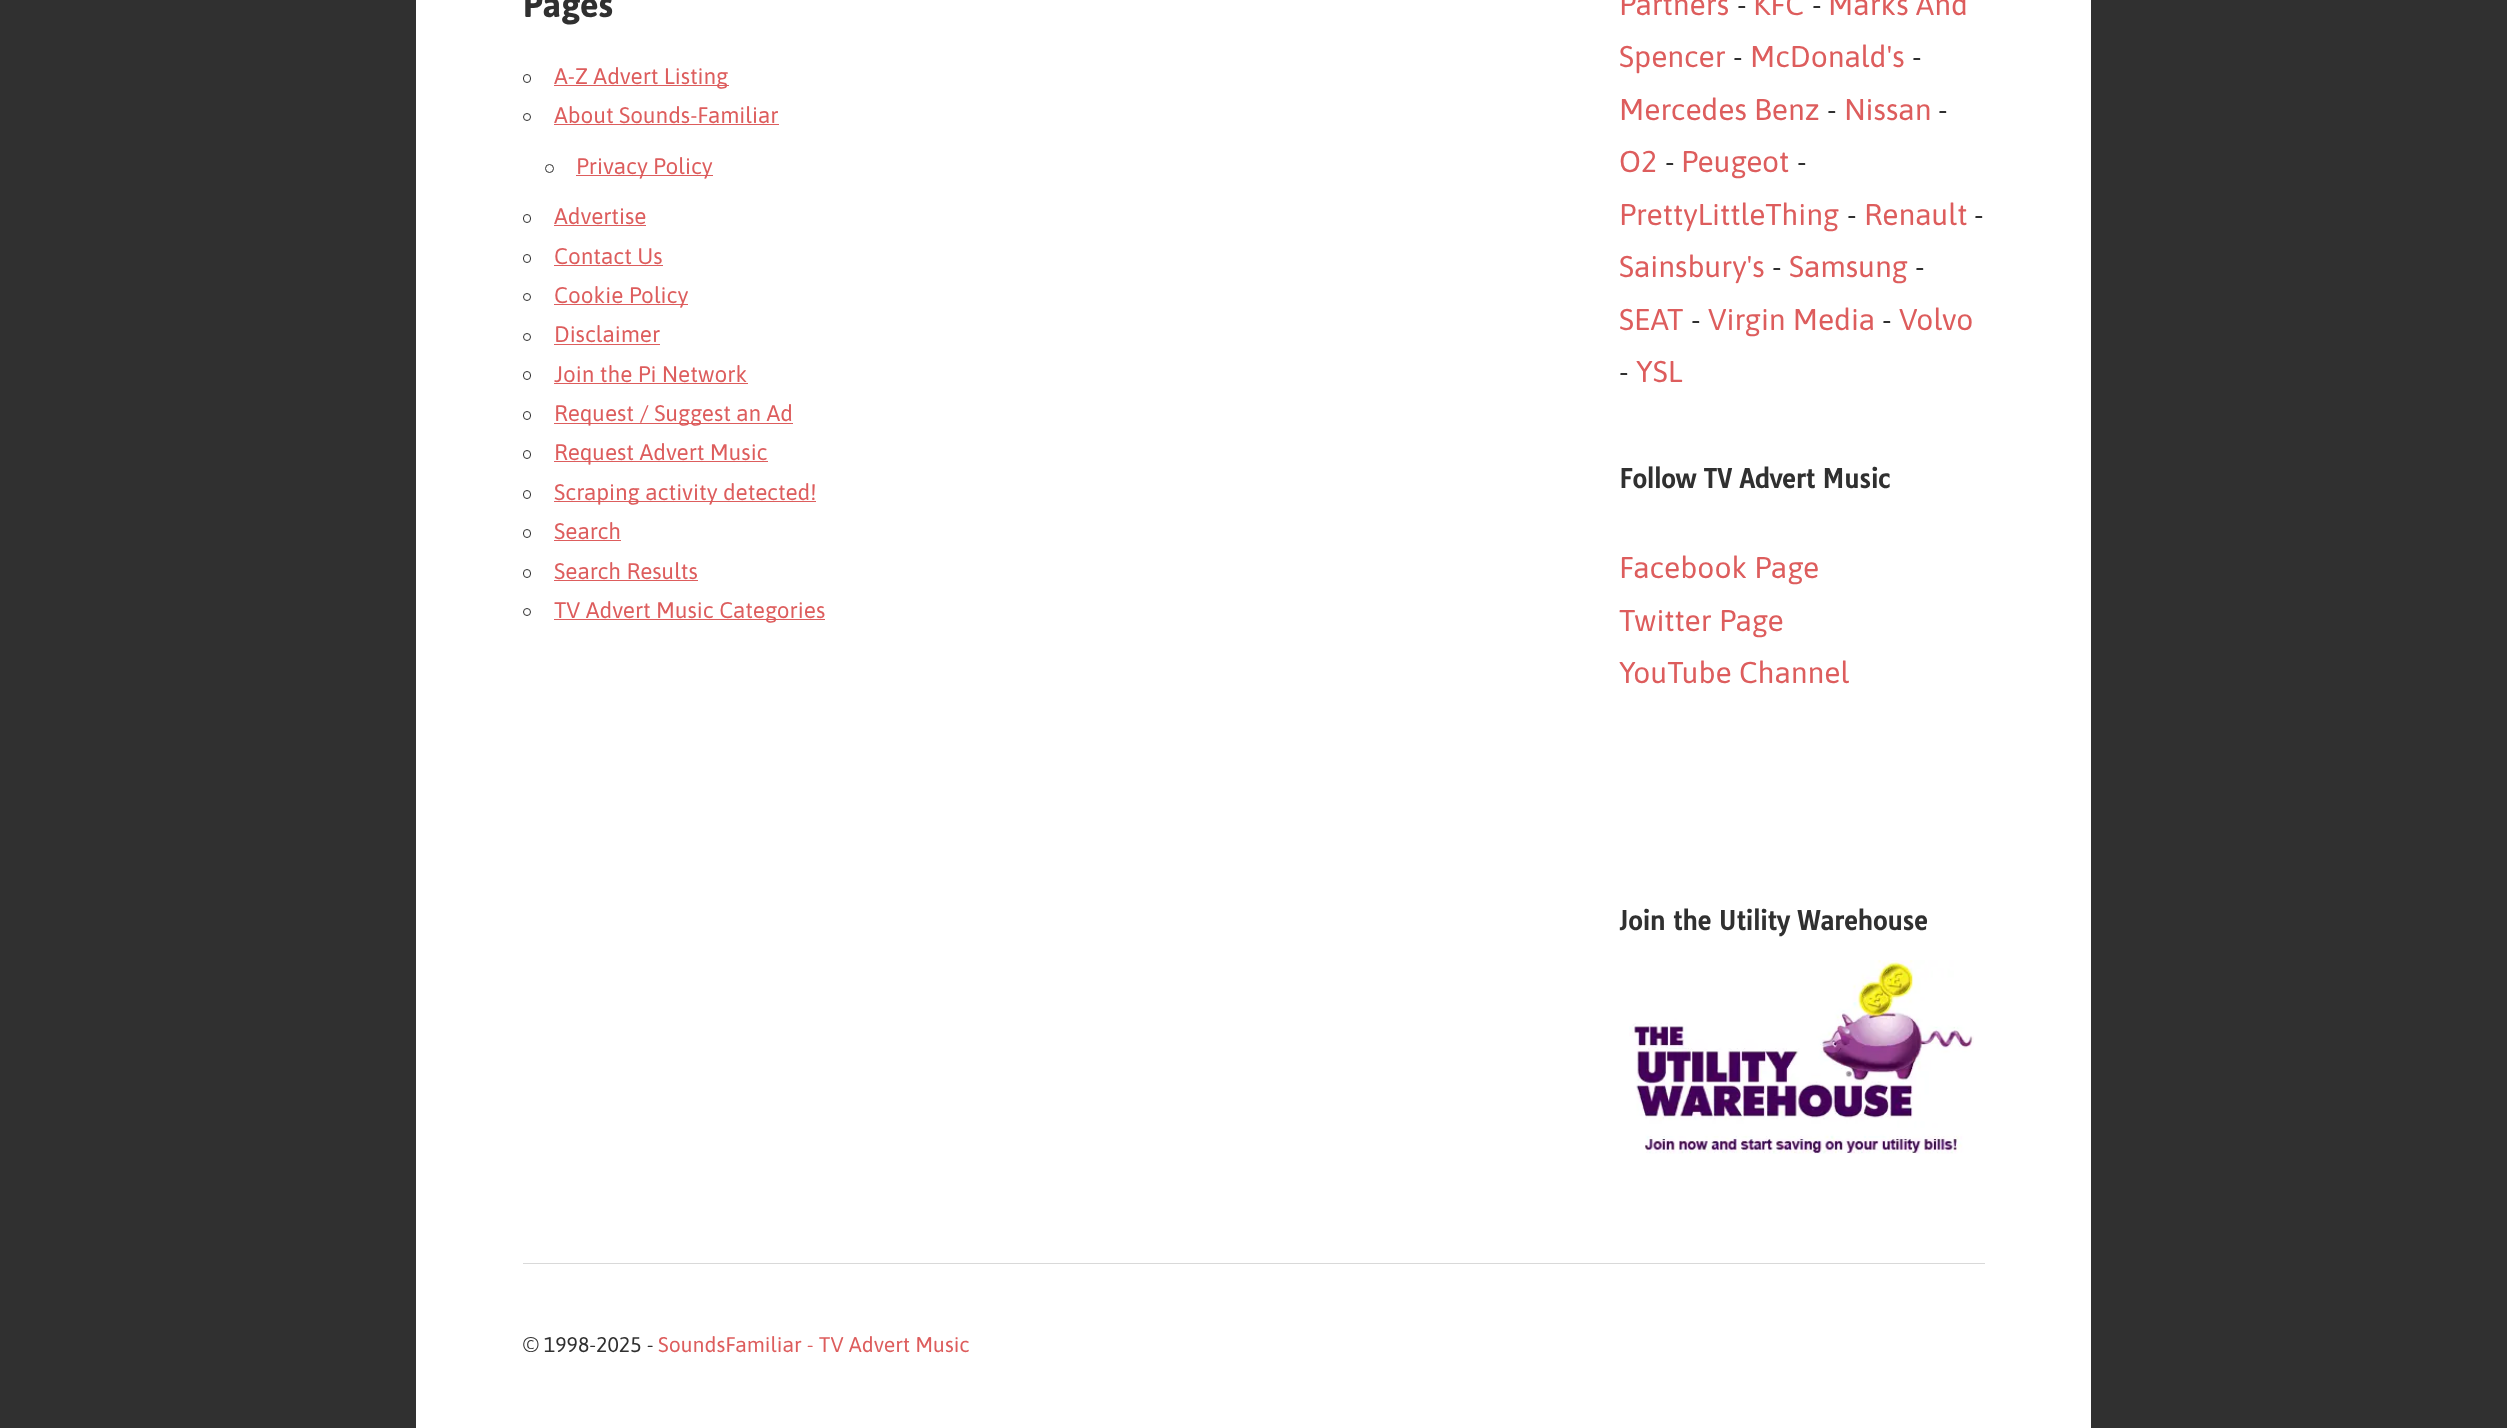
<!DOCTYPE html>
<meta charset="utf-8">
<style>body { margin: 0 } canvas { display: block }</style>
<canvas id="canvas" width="2507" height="1428"></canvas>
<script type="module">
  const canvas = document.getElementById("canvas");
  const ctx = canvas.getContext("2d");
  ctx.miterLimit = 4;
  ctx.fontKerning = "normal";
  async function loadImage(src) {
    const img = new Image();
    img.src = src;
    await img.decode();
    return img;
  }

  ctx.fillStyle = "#303030";
  ctx.fillRect(0, 0, 2507, 1428);
  ctx.fillStyle = "#ffffff";
  ctx.fillRect(416, 0, 1675, 1428);
  ctx.font = "bold 35px Asap";
  ctx.fillStyle = "#303030";
  ctx.fillText("Pages", 523, 17);
  ctx.beginPath();
  ctx.roundRect(523.5, 74.5, 7, 8, 3.5);
  ctx.strokeStyle = "#303030";
  ctx.stroke();
  ctx.fillStyle = "#dd5d5d";
  ctx.fillRect(554, 85, 175, 1);
  ctx.font = "22.5px Asap";
  ctx.fillText("A-Z Advert Listing", 554, 84);
  ctx.beginPath();
  ctx.arc(527, 117, 3.5, 0, Math.PI * 2);
  ctx.stroke();
  ctx.fillText("About Sounds-Familiar", 554, 123);
  ctx.fillRect(554, 124, 225, 1);
  ctx.beginPath();
  ctx.arc(549.5, 168.5, 4, 0, Math.PI * 2);
  ctx.stroke();
  ctx.fillRect(576, 175, 137, 1);
  ctx.fillText("Privacy Policy", 576, 174);
  ctx.beginPath();
  ctx.roundRect(523.5, 214.5, 7, 8, 3.5);
  ctx.stroke();
  ctx.fillText("Advertise", 554, 224);
  ctx.fillRect(554, 225, 92, 1);
  ctx.beginPath();
  ctx.roundRect(523.5, 254.5, 7, 8, 3.5);
  ctx.stroke();
  ctx.fillText("Contact Us", 554, 264);
  ctx.fillRect(554, 265, 109, 1);
  ctx.beginPath();
  ctx.arc(527, 297, 3.5, 0, Math.PI * 2);
  ctx.stroke();
  ctx.fillRect(554, 304, 134, 1);
  ctx.fillText("Cookie Policy", 554, 303);
  ctx.beginPath();
  ctx.arc(527, 337, 3.5, 0, Math.PI * 2);
  ctx.stroke();
  ctx.fillText("Disclaimer", 554, 342);
  ctx.fillRect(554, 344, 106, 1);
  ctx.beginPath();
  ctx.roundRect(523.5, 371.5, 7, 8, 3.5);
  ctx.stroke();
  ctx.fillText("Join the Pi Network", 554, 382);
  ctx.fillRect(554, 383, 194, 1);
  ctx.beginPath();
  ctx.roundRect(523.5, 411.5, 7, 8, 3.5);
  ctx.stroke();
  ctx.fillRect(554, 423, 239, 1);
  ctx.fillText("Request / Suggest an Ad", 554, 421);
  ctx.beginPath();
  ctx.roundRect(523.5, 450.5, 7, 8, 3.5);
  ctx.stroke();
  ctx.fillRect(554, 461, 214, 1);
  ctx.fillText("Request Advert Music", 554, 460);
  ctx.beginPath();
  ctx.roundRect(523.5, 490.5, 7, 8, 3.5);
  ctx.stroke();
  ctx.fillRect(554, 501, 262, 1);
  ctx.fillText("Scraping activity detected!", 554, 500);
  ctx.beginPath();
  ctx.roundRect(523.5, 529.5, 7, 8, 3.5);
  ctx.stroke();
  ctx.fillText("Search", 554, 539);
  ctx.fillRect(554, 540, 67, 1);
  ctx.beginPath();
  ctx.roundRect(523.5, 569.5, 7, 8, 3.5);
  ctx.stroke();
  ctx.fillText("Search Results", 554, 579);
  ctx.fillRect(554, 580, 144, 1);
  ctx.beginPath();
  ctx.arc(527, 612, 3.5, 0, Math.PI * 2);
  ctx.stroke();
  ctx.fillRect(554, 619, 271, 1);
  ctx.fillText("TV Advert Music Categories", 554, 618);
  ctx.font = "30px Asap";
  ctx.fillText("Partners", 1619, 15);
  ctx.fillStyle = "#303030";
  ctx.fillText("-", 1737, 15);
  ctx.fillStyle = "#dd5d5d";
  ctx.fillText("KFC", 1753, 15);
  ctx.fillStyle = "#303030";
  ctx.fillText("-", 1812, 15);
  ctx.fillStyle = "#dd5d5d";
  ctx.fillText("Marks And", 1828, 15);
  ctx.fillText("Spencer", 1619, 67);
  ctx.fillStyle = "#303030";
  ctx.fillText("-", 1733, 67);
  ctx.fillStyle = "#dd5d5d";
  ctx.fillText("McDonald's", 1750, 67);
  ctx.fillStyle = "#303030";
  ctx.fillText("-", 1912, 67);
  ctx.fillStyle = "#dd5d5d";
  ctx.fillText("Mercedes Benz", 1619, 120);
  ctx.fillStyle = "#303030";
  ctx.fillText("-", 1827, 120);
  ctx.fillStyle = "#dd5d5d";
  ctx.fillText("Nissan", 1844, 120);
  ctx.fillStyle = "#303030";
  ctx.fillText("-", 1938, 120);
  ctx.fillStyle = "#dd5d5d";
  ctx.fillText("O2", 1619, 172);
  ctx.fillStyle = "#303030";
  ctx.fillText("-", 1665, 172);
  ctx.fillStyle = "#dd5d5d";
  ctx.fillText("Peugeot", 1681, 172);
  ctx.fillStyle = "#303030";
  ctx.fillText("-", 1797, 172);
  ctx.fillStyle = "#dd5d5d";
  ctx.fillText("PrettyLittleThing", 1619, 225);
  ctx.fillStyle = "#303030";
  ctx.fillText("-", 1847, 225);
  ctx.fillStyle = "#dd5d5d";
  ctx.fillText("Renault", 1864, 225);
  ctx.fillStyle = "#303030";
  ctx.fillText("-", 1974, 225);
  ctx.fillStyle = "#dd5d5d";
  ctx.fillText("Sainsbury's", 1619, 277);
  ctx.fillStyle = "#303030";
  ctx.fillText("-", 1772, 277);
  ctx.fillStyle = "#dd5d5d";
  ctx.fillText("Samsung", 1789, 277);
  ctx.fillStyle = "#303030";
  ctx.fillText("-", 1915, 277);
  ctx.fillStyle = "#dd5d5d";
  ctx.fillText("SEAT", 1619, 330);
  ctx.fillStyle = "#303030";
  ctx.fillText("-", 1691, 330);
  ctx.fillStyle = "#dd5d5d";
  ctx.fillText("Virgin Media", 1708, 330);
  ctx.fillStyle = "#303030";
  ctx.fillText("-", 1882, 330);
  ctx.fillStyle = "#dd5d5d";
  ctx.fillText("Volvo", 1899, 330);
  ctx.fillStyle = "#303030";
  ctx.fillText("-", 1619, 382);
  ctx.fillStyle = "#dd5d5d";
  ctx.fillText("YSL", 1636, 382);
  ctx.font = "bold 25px Tauri";
  ctx.fillStyle = "#303030";
  ctx.fillText("Follow TV Advert Music", 1619, 488);
  ctx.font = "30px Asap";
  ctx.fillStyle = "#dd5d5d";
  ctx.fillText("Facebook Page", 1619, 578);
  ctx.fillText("Twitter Page", 1619, 631);
  ctx.fillText("YouTube Channel", 1619, 683);
  ctx.font = "bold 25px Tauri";
  ctx.fillStyle = "#303030";
  ctx.fillText("Join the Utility Warehouse", 1619, 930);
  ctx.drawImage(await loadImage("img1.png"), 1629, 960, 345, 194);
  ctx.fillStyle = "#d9d9d9";
  ctx.fillRect(523, 1263, 1462, 1);
  ctx.font = "21.25px Asap";
  ctx.fillStyle = "#303030";
  ctx.fillText("© 1998-2025 -", 523, 1352);
  ctx.fillStyle = "#dd5d5d";
  ctx.fillText("SoundsFamiliar - TV Advert Music", 658, 1352);
</script>
